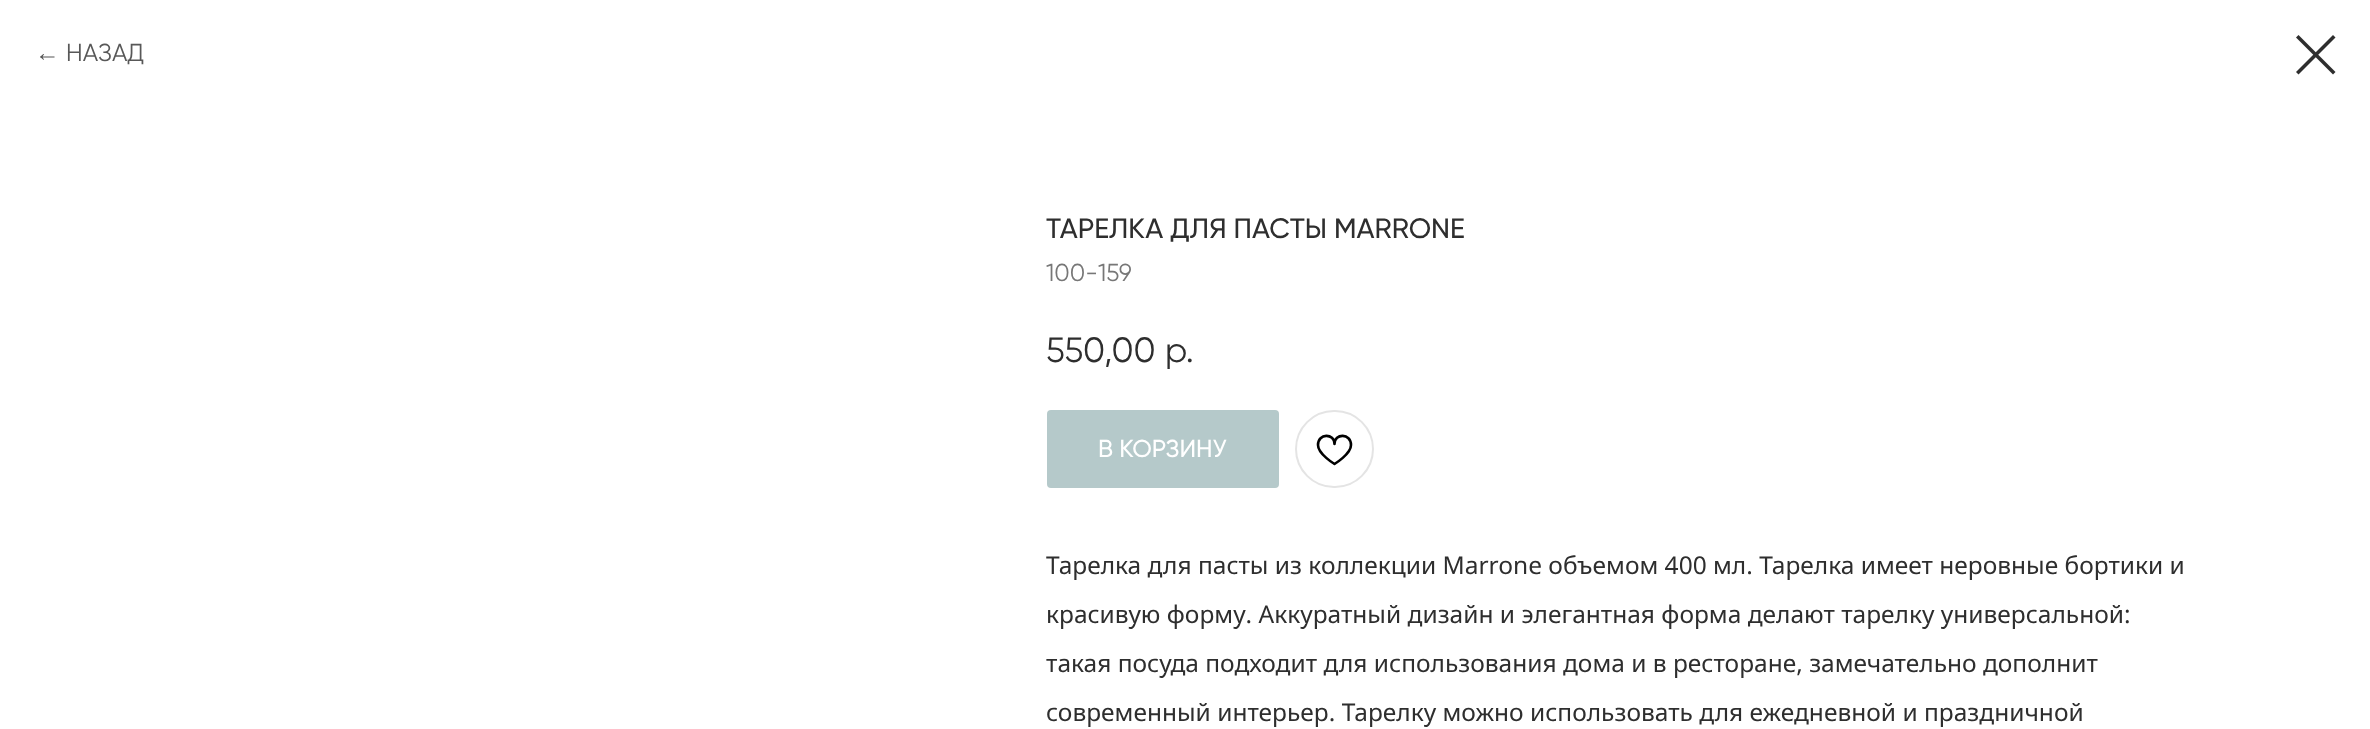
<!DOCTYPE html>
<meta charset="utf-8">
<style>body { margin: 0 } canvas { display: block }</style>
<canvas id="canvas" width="2370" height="729"></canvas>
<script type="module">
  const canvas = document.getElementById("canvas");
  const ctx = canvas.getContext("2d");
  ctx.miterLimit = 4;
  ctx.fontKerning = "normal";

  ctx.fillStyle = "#ffffff";
  ctx.fillRect(0, 0, 2370, 729);
  ctx.font = "24.5px Liberation Sans";
  ctx.fillStyle = "#585858";
  ctx.fillText("←", 35, 61);
  ctx.font = "24.5px Gilroy";
  ctx.fillText("НАЗАД", 66, 61);
  ctx.fillStyle = "#2e2e2e";
  ctx.beginPath();
  ctx.moveTo(2296, 37.5);
  ctx.lineTo(2298.5, 35);
  ctx.lineTo(2335.5, 72);
  ctx.lineTo(2333, 74.5);
  ctx.closePath();
  ctx.fill("evenodd");
  ctx.beginPath();
  ctx.moveTo(2333, 35);
  ctx.lineTo(2335.5, 37.5);
  ctx.lineTo(2298.5, 74.5);
  ctx.lineTo(2296, 72);
  ctx.closePath();
  ctx.fill("evenodd");
  ctx.font = "500 28px Gilroy";
  ctx.fillText("ТАРЕЛКА ДЛЯ ПАСТЫ MARRONE", 1046, 238);
  ctx.font = "24.5px Gilroy";
  ctx.fillStyle = "#777777";
  ctx.fillText("100-159", 1046, 281);
  ctx.font = "35px Gilroy";
  ctx.fillStyle = "#2e2e2e";
  ctx.fillText("550,00", 1046, 362);
  ctx.fillText("р.", 1165, 362);
  ctx.fillStyle = "#b5c9ca";
  ctx.beginPath();
  ctx.roundRect(1047, 410, 232, 78, 4);
  ctx.fill();
  ctx.font = "500 24.5px Gilroy";
  ctx.fillStyle = "#ffffff";
  ctx.fillText("В КОРЗИНУ", 1098, 457);
  ctx.beginPath();
  ctx.roundRect(1296, 411, 77, 76, 38);
  ctx.strokeStyle = "#e4e4e4";
  ctx.lineWidth = 2;
  ctx.stroke();
  ctx.beginPath();
  ctx.moveTo(1351, 445);
  ctx.bezierCurveTo(1351, 454, 1334.5, 464, 1334.5, 464);
  ctx.bezierCurveTo(1334.5, 464, 1318, 454, 1318, 445);
  ctx.bezierCurveTo(1318, 433, 1334.5, 433, 1334.5, 444);
  ctx.bezierCurveTo(1334.5, 433, 1351, 433, 1351, 445);
  ctx.closePath();
  ctx.strokeStyle = "#000000";
  ctx.lineWidth = 2.6;
  ctx.lineJoin = "round";
  ctx.stroke();
  ctx.font = "24.5px Noto Sans";
  ctx.fillStyle = "#2e2e2e";
  ctx.fillText("Тарелка для пасты из коллекции Marrone объемом 400 мл. Тарелка имеет неровные бортики и", 1046, 574);
  ctx.fillText("красивую форму. Аккуратный дизайн и элегантная форма делают тарелку универсальной:", 1046, 623);
  ctx.fillText("такая посуда подходит для использования дома и в ресторане, замечательно дополнит", 1046, 672);
  ctx.fillText("современный интерьер. Тарелку можно использовать для ежедневной и праздничной", 1046, 721);
</script>
